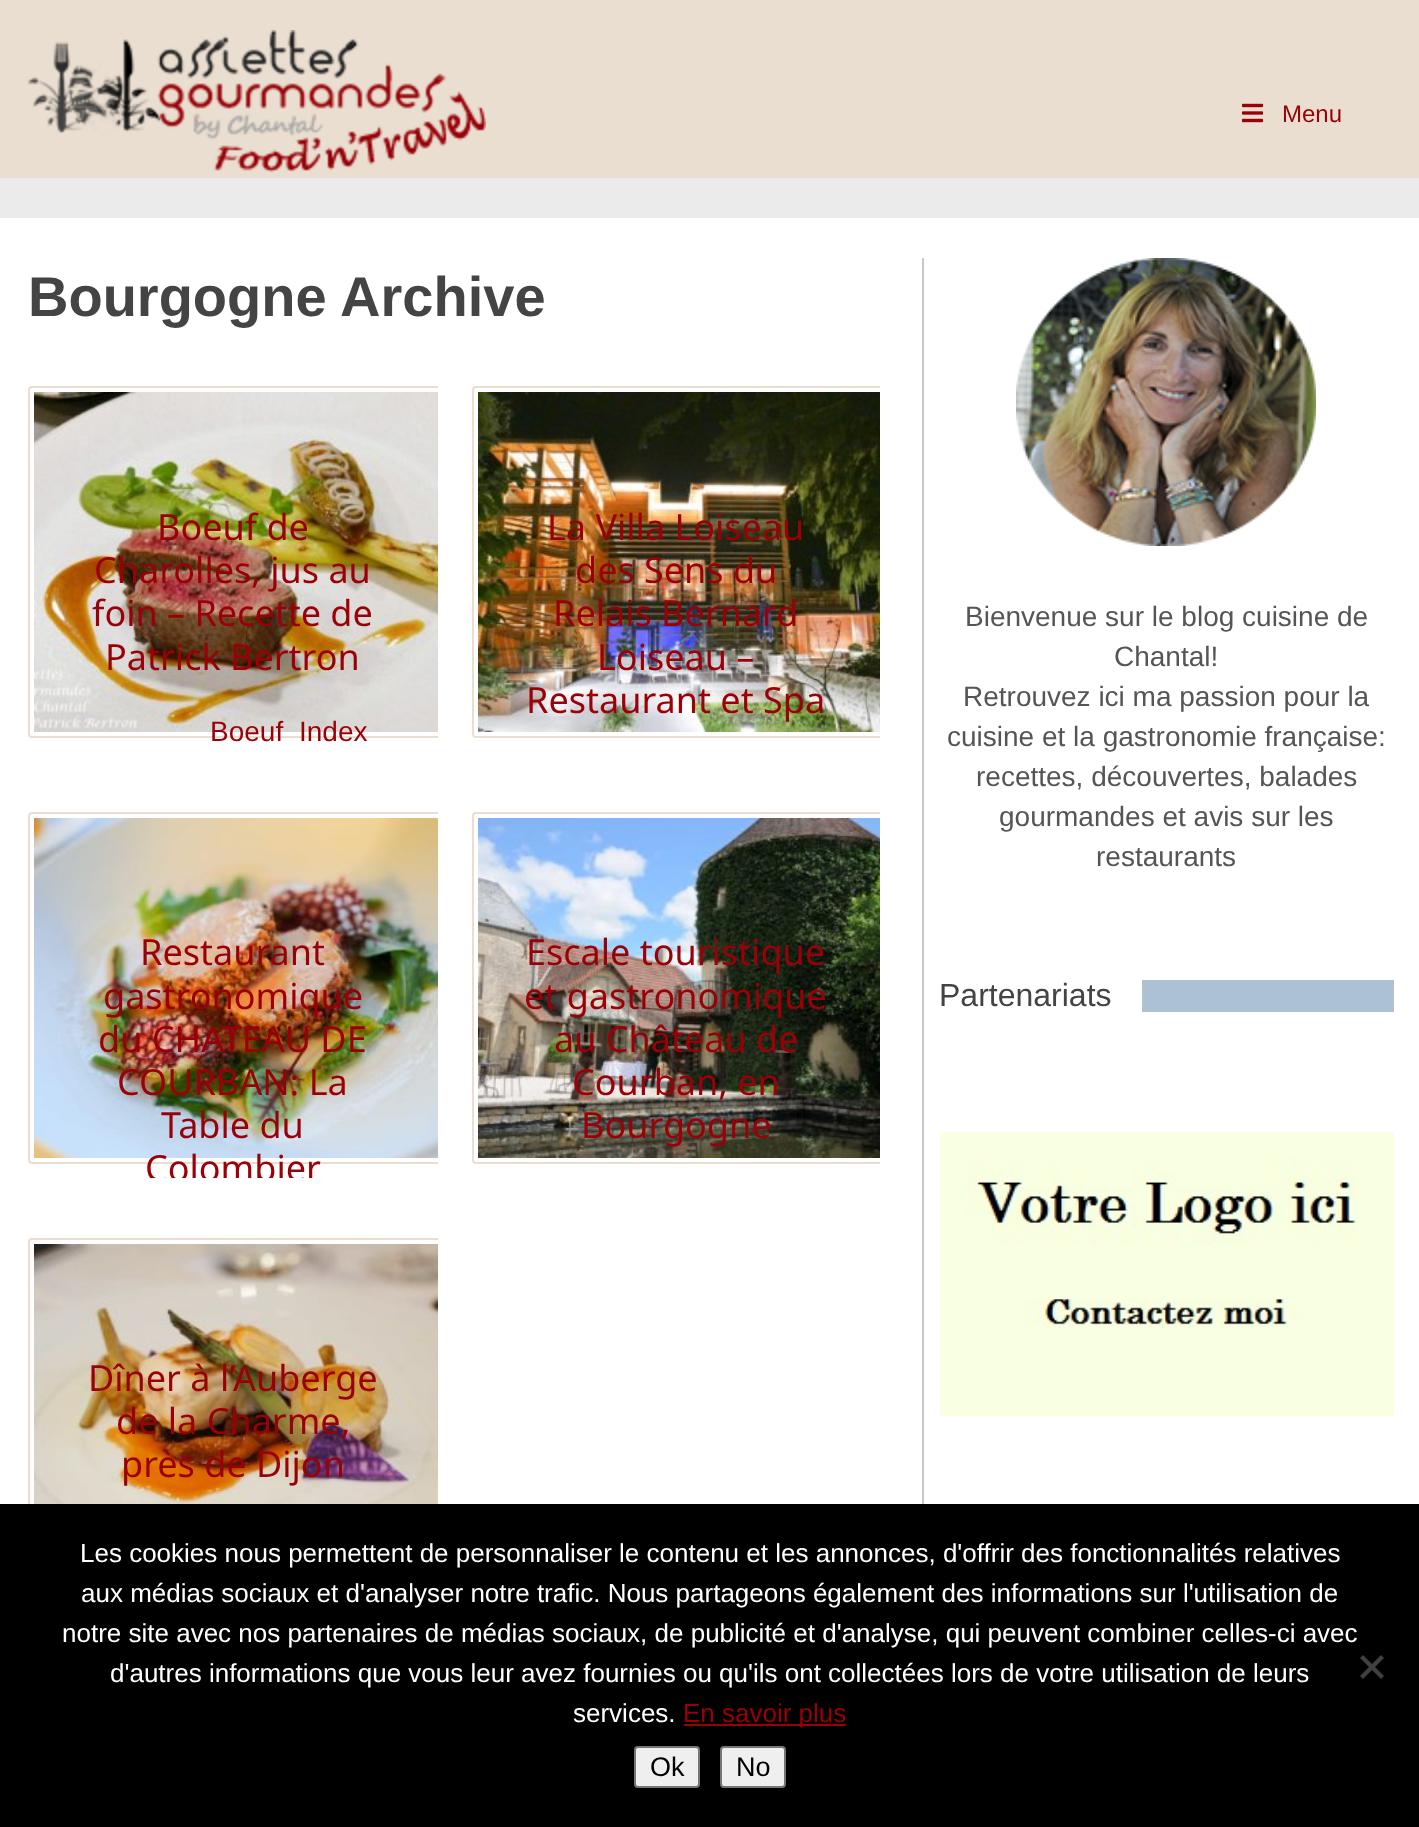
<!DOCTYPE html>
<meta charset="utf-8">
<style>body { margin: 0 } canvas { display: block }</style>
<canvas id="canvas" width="1419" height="1827"></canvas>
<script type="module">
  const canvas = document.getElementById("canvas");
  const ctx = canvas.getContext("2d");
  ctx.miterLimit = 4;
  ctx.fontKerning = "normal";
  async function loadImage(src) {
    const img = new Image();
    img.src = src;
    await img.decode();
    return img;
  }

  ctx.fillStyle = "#ebebeb";
  ctx.fillRect(0, 0, 1419, 1827);
  ctx.fillStyle = "#eaded0";
  ctx.fillRect(0, 0, 1419, 178);
  ctx.drawImage(await loadImage("img1.png"), 28, 30, 458, 142);
  ctx.drawImage(await loadImage("img2.png"), 1242, 103, 21, 20);
  ctx.font = "24px Liberation Sans";
  ctx.fillStyle = "#990007";
  ctx.fillText("Menu", 1282, 122);
  ctx.fillStyle = "#ffffff";
  ctx.fillRect(0, 218, 1419, 1286);
  ctx.fillStyle = "#c7c7c7";
  ctx.fillRect(922, 258, 2, 1246);
  ctx.font = "bold 56px Liberation Sans";
  ctx.fillStyle = "#444444";
  ctx.fillText("Bourgogne Archive", 28, 316);
  ctx.save();
  ctx.beginPath();
  ctx.rect(28, 386, 410, 366);
  ctx.clip();
  ctx.beginPath();
  ctx.roundRect(29, 387, 420, 350, 3);
  ctx.strokeStyle = "#eaded0";
  ctx.lineWidth = 2;
  ctx.stroke();
  ctx.restore();
  ctx.drawImage(await loadImage("img3.png"), 34, 392, 404, 340);
  ctx.font = "36px Noto Sans";
  ctx.fillStyle = "#990007";
  ctx.fillText("Boeuf de", 157, 540);
  ctx.fillText("Charolles, jus au", 94, 583);
  ctx.fillText("foin – Recette de", 92, 626);
  ctx.fillText("Patrick Bertron", 105, 670);
  ctx.font = "28px Liberation Sans";
  ctx.fillText("Boeuf", 210, 741);
  ctx.fillText("Index", 299, 741);
  ctx.save();
  ctx.beginPath();
  ctx.rect(472, 386, 408, 366);
  ctx.clip();
  ctx.beginPath();
  ctx.roundRect(473, 387, 418, 350, 3);
  ctx.strokeStyle = "#eaded0";
  ctx.lineWidth = 2;
  ctx.stroke();
  ctx.restore();
  ctx.drawImage(await loadImage("img4.png"), 478, 392, 402, 340);
  ctx.font = "36px Noto Sans";
  ctx.fillText("La Villa Loiseau", 547, 540);
  ctx.fillText("des Sens du", 575, 583);
  ctx.fillText("Relais Bernard", 553, 626);
  ctx.fillText("Loiseau –", 597, 670);
  ctx.fillText("Restaurant et Spa", 526, 713);
  ctx.save();
  ctx.beginPath();
  ctx.rect(28, 812, 410, 366);
  ctx.clip();
  ctx.beginPath();
  ctx.roundRect(29, 813, 420, 350, 3);
  ctx.strokeStyle = "#eaded0";
  ctx.lineWidth = 2;
  ctx.stroke();
  ctx.restore();
  ctx.drawImage(await loadImage("img5.png"), 34, 818, 404, 340);
  ctx.fillText("Restaurant", 140, 965);
  ctx.fillText("gastronomique", 103, 1009);
  ctx.fillText("du CHATEAU DE", 98, 1052);
  ctx.fillText("COURBAN: La", 117, 1095);
  ctx.fillText("Table du", 161, 1138);
  ctx.save();
  ctx.beginPath();
  ctx.rect(28, 812, 410, 366);
  ctx.clip();
  ctx.fillText("Colombier", 145, 1181);
  ctx.restore();
  ctx.save();
  ctx.beginPath();
  ctx.rect(472, 812, 408, 366);
  ctx.clip();
  ctx.beginPath();
  ctx.roundRect(473, 813, 418, 350, 3);
  ctx.strokeStyle = "#eaded0";
  ctx.lineWidth = 2;
  ctx.stroke();
  ctx.restore();
  ctx.drawImage(await loadImage("img6.png"), 478, 818, 402, 340);
  ctx.fillText("Escale touristique", 526, 965);
  ctx.fillText("et gastronomique", 524, 1009);
  ctx.fillText("au Château de", 554, 1052);
  ctx.fillText("Courban, en", 572, 1095);
  ctx.fillText("Bourgogne", 581, 1138);
  ctx.save();
  ctx.beginPath();
  ctx.rect(28, 1238, 410, 364);
  ctx.clip();
  ctx.beginPath();
  ctx.roundRect(29, 1239, 420, 348, 3);
  ctx.strokeStyle = "#eaded0";
  ctx.lineWidth = 2;
  ctx.stroke();
  ctx.restore();
  ctx.drawImage(await loadImage("img7.png"), 34, 1244, 404, 260);
  ctx.fillText("Dîner à l’Auberge", 88, 1391);
  ctx.fillText("de la Charme,", 116, 1434);
  ctx.fillText("près de Dijon", 121, 1477);
  ctx.drawImage(await loadImage("img8.png"), 1016, 258, 300, 288);
  ctx.font = "28px Liberation Sans";
  ctx.fillStyle = "#555555";
  ctx.fillText("Bienvenue sur le blog cuisine de", 965, 626);
  ctx.fillText("Chantal!", 1114, 666);
  ctx.fillText("Retrouvez ici ma passion pour la", 963, 706);
  ctx.fillText("cuisine et la gastronomie française:", 947, 746);
  ctx.fillText("recettes, découvertes, balades", 976, 786);
  ctx.fillText("gourmandes et avis sur les", 999, 826);
  ctx.fillText("restaurants", 1096, 866);
  ctx.fillStyle = "#acc1d3";
  ctx.fillRect(1142, 980, 252, 32);
  ctx.font = "32px Liberation Sans";
  ctx.fillStyle = "#444444";
  ctx.fillText("Partenariats", 939, 1006);
  ctx.drawImage(await loadImage("img9.png"), 940, 1132, 454, 284);
  ctx.fillStyle = "#000000";
  ctx.fillRect(0, 1504, 1419, 323);
  ctx.font = "26px Liberation Sans";
  ctx.fillStyle = "#ffffff";
  ctx.fillText("Les cookies nous permettent de personnaliser le contenu et les annonces, d'offrir des fonctionnalités relatives", 80, 1562);
  ctx.fillText("aux médias sociaux et d'analyser notre trafic. Nous partageons également des informations sur l'utilisation de", 81, 1602);
  ctx.fillText("notre site avec nos partenaires de médias sociaux, de publicité et d'analyse, qui peuvent combiner celles-ci avec", 62, 1642);
  ctx.fillText("d'autres informations que vous leur avez fournies ou qu'ils ont collectées lors de votre utilisation de leurs", 110, 1682);
  ctx.fillText("services.", 573, 1722);
  ctx.fillStyle = "#990007";
  ctx.fillRect(684, 1724, 162, 2);
  ctx.fillText("En savoir plus", 683, 1722);
  ctx.fillStyle = "#404040";
  ctx.beginPath();
  ctx.moveTo(1381, 1655);
  ctx.lineTo(1384, 1658);
  ctx.lineTo(1363, 1679);
  ctx.lineTo(1360, 1676);
  ctx.closePath();
  ctx.fill();
  ctx.beginPath();
  ctx.moveTo(1360, 1658);
  ctx.lineTo(1363, 1655);
  ctx.lineTo(1384, 1676);
  ctx.lineTo(1381, 1679);
  ctx.closePath();
  ctx.fill();
  ctx.fillStyle = "#efefef";
  ctx.beginPath();
  ctx.roundRect(635, 1747, 64, 40, 3);
  ctx.fill();
  ctx.strokeStyle = "#767676";
  ctx.lineWidth = 2;
  ctx.stroke();
  ctx.font = "27px Liberation Sans";
  ctx.fillStyle = "#000000";
  ctx.fillText("Ok", 650, 1776);
  ctx.fillStyle = "#efefef";
  ctx.beginPath();
  ctx.roundRect(721, 1747, 64, 40, 3);
  ctx.fill();
  ctx.stroke();
  ctx.fillStyle = "#000000";
  ctx.fillText("No", 736, 1776);
</script>
